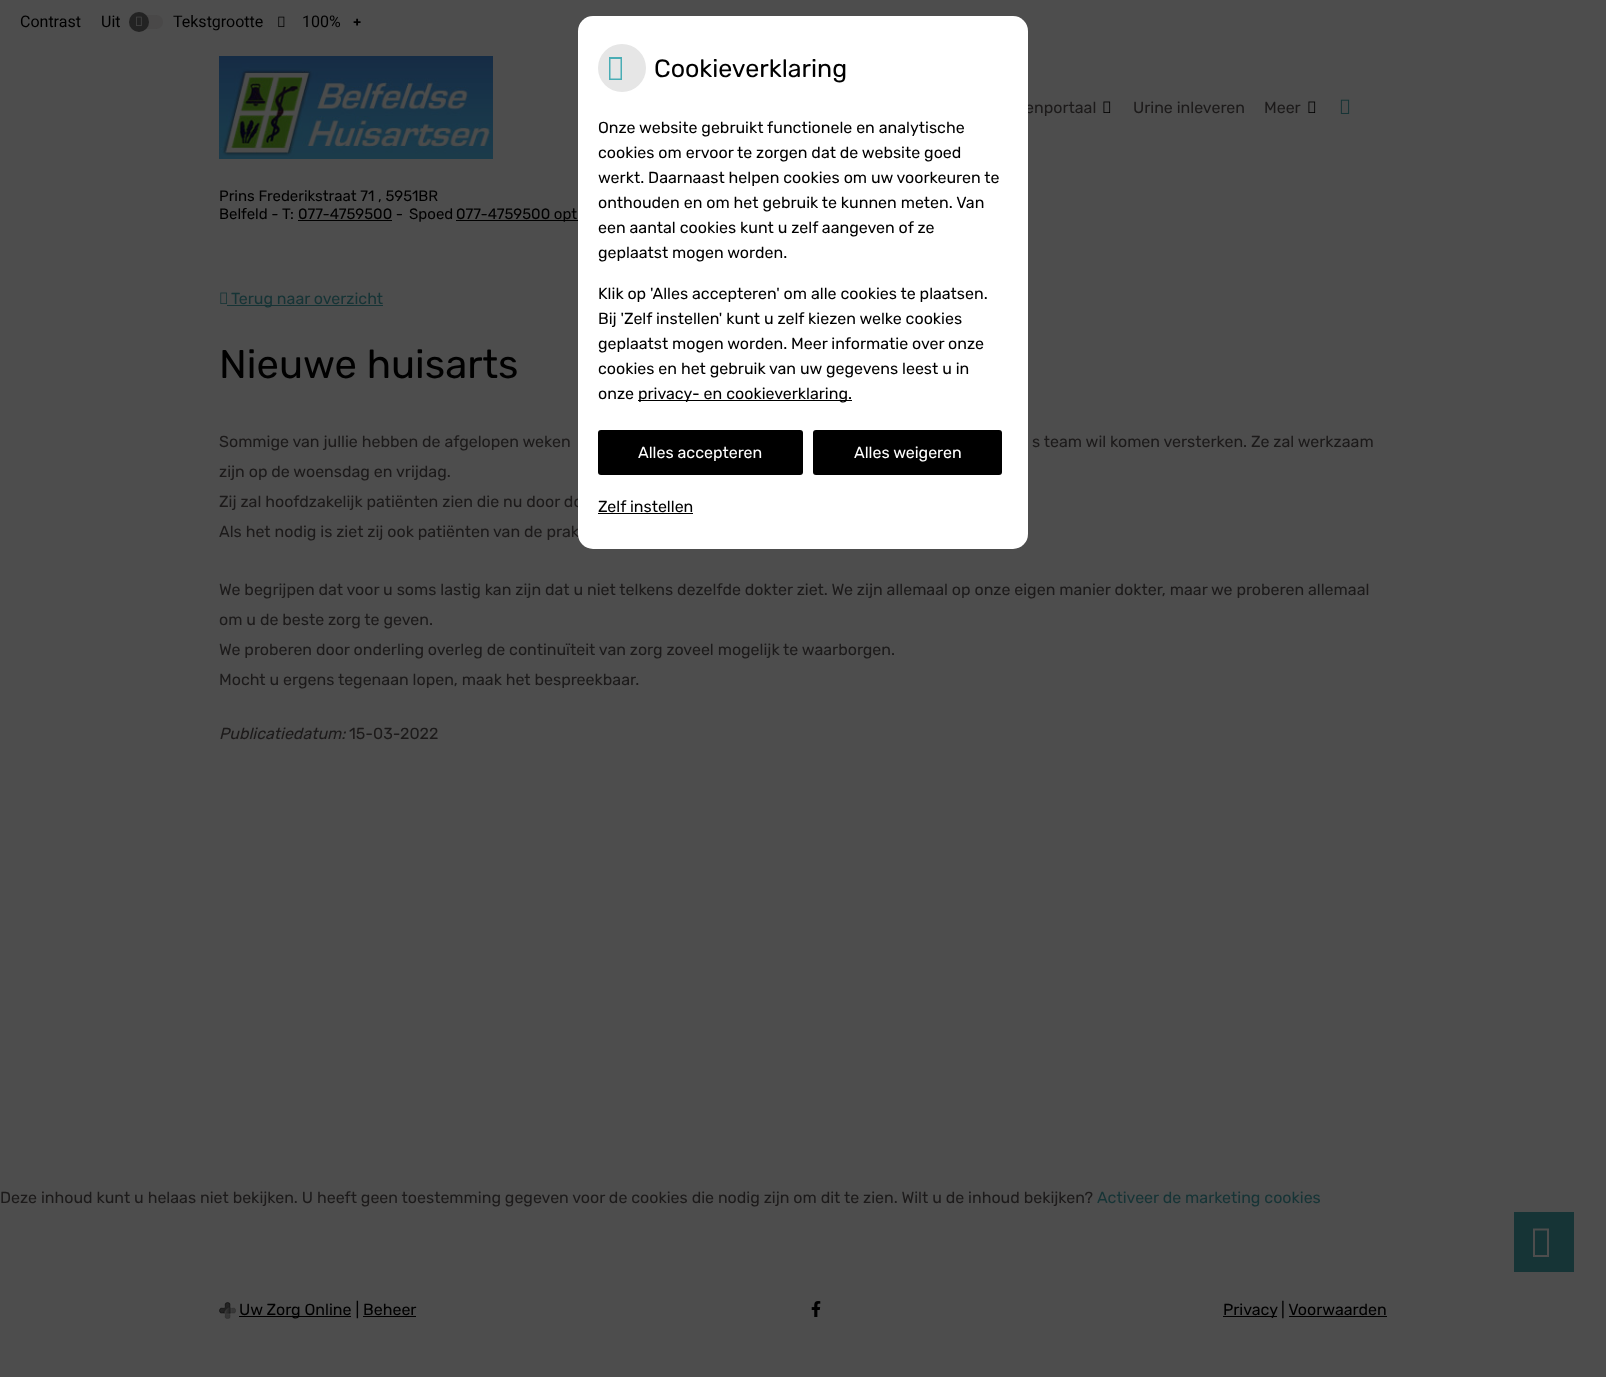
<!DOCTYPE html>
<meta charset="utf-8">
<style>body { margin: 0 } canvas { display: block }</style>
<canvas id="canvas" width="1606" height="1377"></canvas>
<script type="module">
  const canvas = document.getElementById("canvas");
  const ctx = canvas.getContext("2d");
  ctx.miterLimit = 4;
  ctx.fontKerning = "normal";
  async function loadImage(src) {
    const img = new Image();
    img.src = src;
    await img.decode();
    return img;
  }

  ctx.fillStyle = "#4d4d4d";
  ctx.fillRect(0, 0, 1606, 1377);
  ctx.font = "16px Roboto";
  ctx.fillStyle = "#000000";
  ctx.fillText("Contrast", 20, 27);
  ctx.fillText("Uit", 101, 27);
  ctx.fillStyle = "#494848";
  ctx.beginPath();
  ctx.roundRect(129, 15, 34, 14, 7);
  ctx.fill();
  ctx.fillStyle = "#232323";
  ctx.beginPath();
  ctx.arc(139, 22, 10, 0, Math.PI * 2);
  ctx.fill();
  ctx.drawImage(await loadImage("img1.png"), 136, 16, 6, 10);
  ctx.fillStyle = "#000000";
  ctx.fillText("Tekstgrootte", 173, 27);
  ctx.drawImage(await loadImage("img2.png"), 278, 16, 7, 11);
  ctx.fillText("100%", 302, 27);
  ctx.font = "900 14px Noto Sans";
  ctx.fillText("+", 353, 27);
  ctx.font = "300 16px Rubik";
  ctx.fillStyle = "#1c1a1a";
  ctx.fillText("enportaal", 1025, 113);
  ctx.fillText("Zij zal hoofdzakelijk patiënten zien die nu door do", 219, 507);
  ctx.fillText("Als het nodig is ziet zij ook patiënten van de prak", 219, 537);
  ctx.fillStyle = "#ffffff";
  ctx.beginPath();
  ctx.roundRect(578, 16, 450, 533, 15);
  ctx.fill();
  ctx.fillStyle = "#e6e6e6";
  ctx.beginPath();
  ctx.arc(622, 68, 24, 0, Math.PI * 2);
  ctx.fill();
  ctx.fillStyle = "#4aadb5";
  ctx.beginPath();
  ctx.moveTo(609, 80);
  ctx.lineTo(609, 57);
  ctx.lineTo(622, 57);
  ctx.lineTo(622, 80);
  ctx.closePath();
  ctx.moveTo(610.5, 78.5);
  ctx.lineTo(620.5, 78.5);
  ctx.lineTo(620.5, 59);
  ctx.lineTo(610.5, 59);
  ctx.closePath();
  ctx.fill();
  ctx.font = "300 25px Rubik";
  ctx.fillStyle = "#000000";
  ctx.fillText("Cookieverklaring", 654, 77);
  ctx.font = "300 16px Rubik";
  ctx.fillText("Onze website gebruikt functionele en analytische", 598, 133);
  ctx.fillText("cookies om ervoor te zorgen dat de website goed", 598, 158);
  ctx.fillText("werkt. Daarnaast helpen cookies om uw voorkeuren te", 598, 183);
  ctx.fillText("onthouden en om het gebruik te kunnen meten. Van", 598, 208);
  ctx.fillText("een aantal cookies kunt u zelf aangeven of ze", 598, 233);
  ctx.fillText("geplaatst mogen worden.", 598, 258);
  ctx.fillText("Klik op 'Alles accepteren' om alle cookies te plaatsen.", 598, 299);
  ctx.fillText("Bij 'Zelf instellen' kunt u zelf kiezen welke cookies", 598, 324);
  ctx.fillText("geplaatst mogen worden. Meer informatie over onze", 598, 349);
  ctx.fillText("cookies en het gebruik van uw gegevens leest u in", 598, 374);
  ctx.fillText("onze", 598, 399);
  ctx.fillRect(638, 400, 214, 1);
  ctx.fillText("privacy- en cookieverklaring.", 638, 399);
  ctx.beginPath();
  ctx.roundRect(598, 430, 205, 45, 3);
  ctx.fill();
  ctx.fillStyle = "#ffffff";
  ctx.fillText("Alles accepteren", 638, 458);
  ctx.fillStyle = "#000000";
  ctx.beginPath();
  ctx.roundRect(813, 430, 189, 45, 3);
  ctx.fill();
  ctx.fillStyle = "#ffffff";
  ctx.fillText("Alles weigeren", 854, 458);
  ctx.fillStyle = "#000000";
  ctx.fillText("Zelf instellen", 598, 512);
  ctx.fillRect(598, 513, 95, 1);
  ctx.drawImage(await loadImage("img3.png"), 219, 56, 274, 103);
  ctx.drawImage(await loadImage("img4.png"), 1103, 101, 8, 12);
  ctx.fillStyle = "#1c1a1a";
  ctx.fillText("Urine inleveren", 1133, 113);
  ctx.fillText("Meer", 1264, 113);
  ctx.drawImage(await loadImage("img4.png"), 1308, 101, 8, 12);
  ctx.drawImage(await loadImage("img5.png"), 1340, 99, 10, 15);
  ctx.font = "300 15px Rubik";
  ctx.fillStyle = "#000000";
  ctx.fillText("Prins Frederikstraat 71 , 5951BR", 219, 201);
  ctx.fillText("Belfeld - T:", 219, 219);
  ctx.fillText("077-4759500 -", 298, 219);
  ctx.fillRect(298, 220, 94, 1);
  ctx.fillText("Spoed", 409, 219);
  ctx.fillRect(456, 220, 122, 1);
  ctx.fillText("077-4759500 opt", 456, 219);
  ctx.drawImage(await loadImage("img6.png"), 220, 292, 7, 12);
  ctx.fillStyle = "#163436";
  ctx.fillRect(227, 305, 156, 1);
  ctx.font = "300 16px Rubik";
  ctx.fillText("Terug naar overzicht", 231, 304);
  ctx.font = "300 40px Rubik";
  ctx.fillStyle = "#000000";
  ctx.fillText("Nieuwe huisarts", 219, 378);
  ctx.font = "300 16px Rubik";
  ctx.fillStyle = "#1c1a1a";
  ctx.fillText("Sommige van jullie hebben de afgelopen weken", 219, 447);
  ctx.fillText("s team wil komen versterken. Ze zal werkzaam", 1032, 447);
  ctx.fillText("zijn op de woensdag en vrijdag.", 219, 477);
  ctx.fillText("We begrijpen dat voor u soms lastig kan zijn dat u niet telkens dezelfde dokter ziet. We zijn allemaal op onze eigen manier dokter, maar we proberen allemaal", 219, 595);
  ctx.fillText("om u de beste zorg te geven.", 219, 625);
  ctx.fillText("We proberen door onderling overleg de continuïteit van zorg zoveel mogelijk te waarborgen.", 219, 655);
  ctx.fillText("Mocht u ergens tegenaan lopen, maak het bespreekbaar.", 219, 685);
  ctx.font = "italic 300 16px Rubik";
  ctx.fillText("Publicatiedatum:", 219, 739);
  ctx.font = "300 16px Rubik";
  ctx.fillText("15-03-2022", 349, 739);
  ctx.fillText("Deze inhoud kunt u helaas niet bekijken. U heeft geen toestemming gegeven voor de cookies die nodig zijn om dit te zien. Wilt u de inhoud bekijken?", 0, 1203);
  ctx.fillStyle = "#163436";
  ctx.fillText("Activeer de marketing cookies", 1097, 1203);
  ctx.fillRect(1514, 1212, 60, 60);
  ctx.fillStyle = "#4d4d4d";
  ctx.beginPath();
  ctx.moveTo(1533, 1257);
  ctx.lineTo(1533, 1228.5);
  ctx.lineTo(1549, 1228.5);
  ctx.lineTo(1549, 1257);
  ctx.closePath();
  ctx.moveTo(1535, 1255);
  ctx.lineTo(1547, 1255);
  ctx.lineTo(1547, 1230.5);
  ctx.lineTo(1535, 1230.5);
  ctx.closePath();
  ctx.fill();
  ctx.drawImage(await loadImage("img7.png"), 219, 1302, 17, 17);
  ctx.fillStyle = "#000000";
  ctx.fillRect(239, 1316, 112, 1);
  ctx.fillText("Uw Zorg Online | Beheer", 239, 1315);
  ctx.fillRect(363, 1316, 53, 1);
  ctx.drawImage(await loadImage("img8.png"), 811, 1301, 10, 16);
  ctx.fillRect(1223, 1316, 54, 1);
  ctx.fillText("Privacy", 1223, 1315);
  ctx.fillText("| Voorwaarden", 1281, 1315);
  ctx.fillRect(1289, 1316, 98, 1);
</script>
